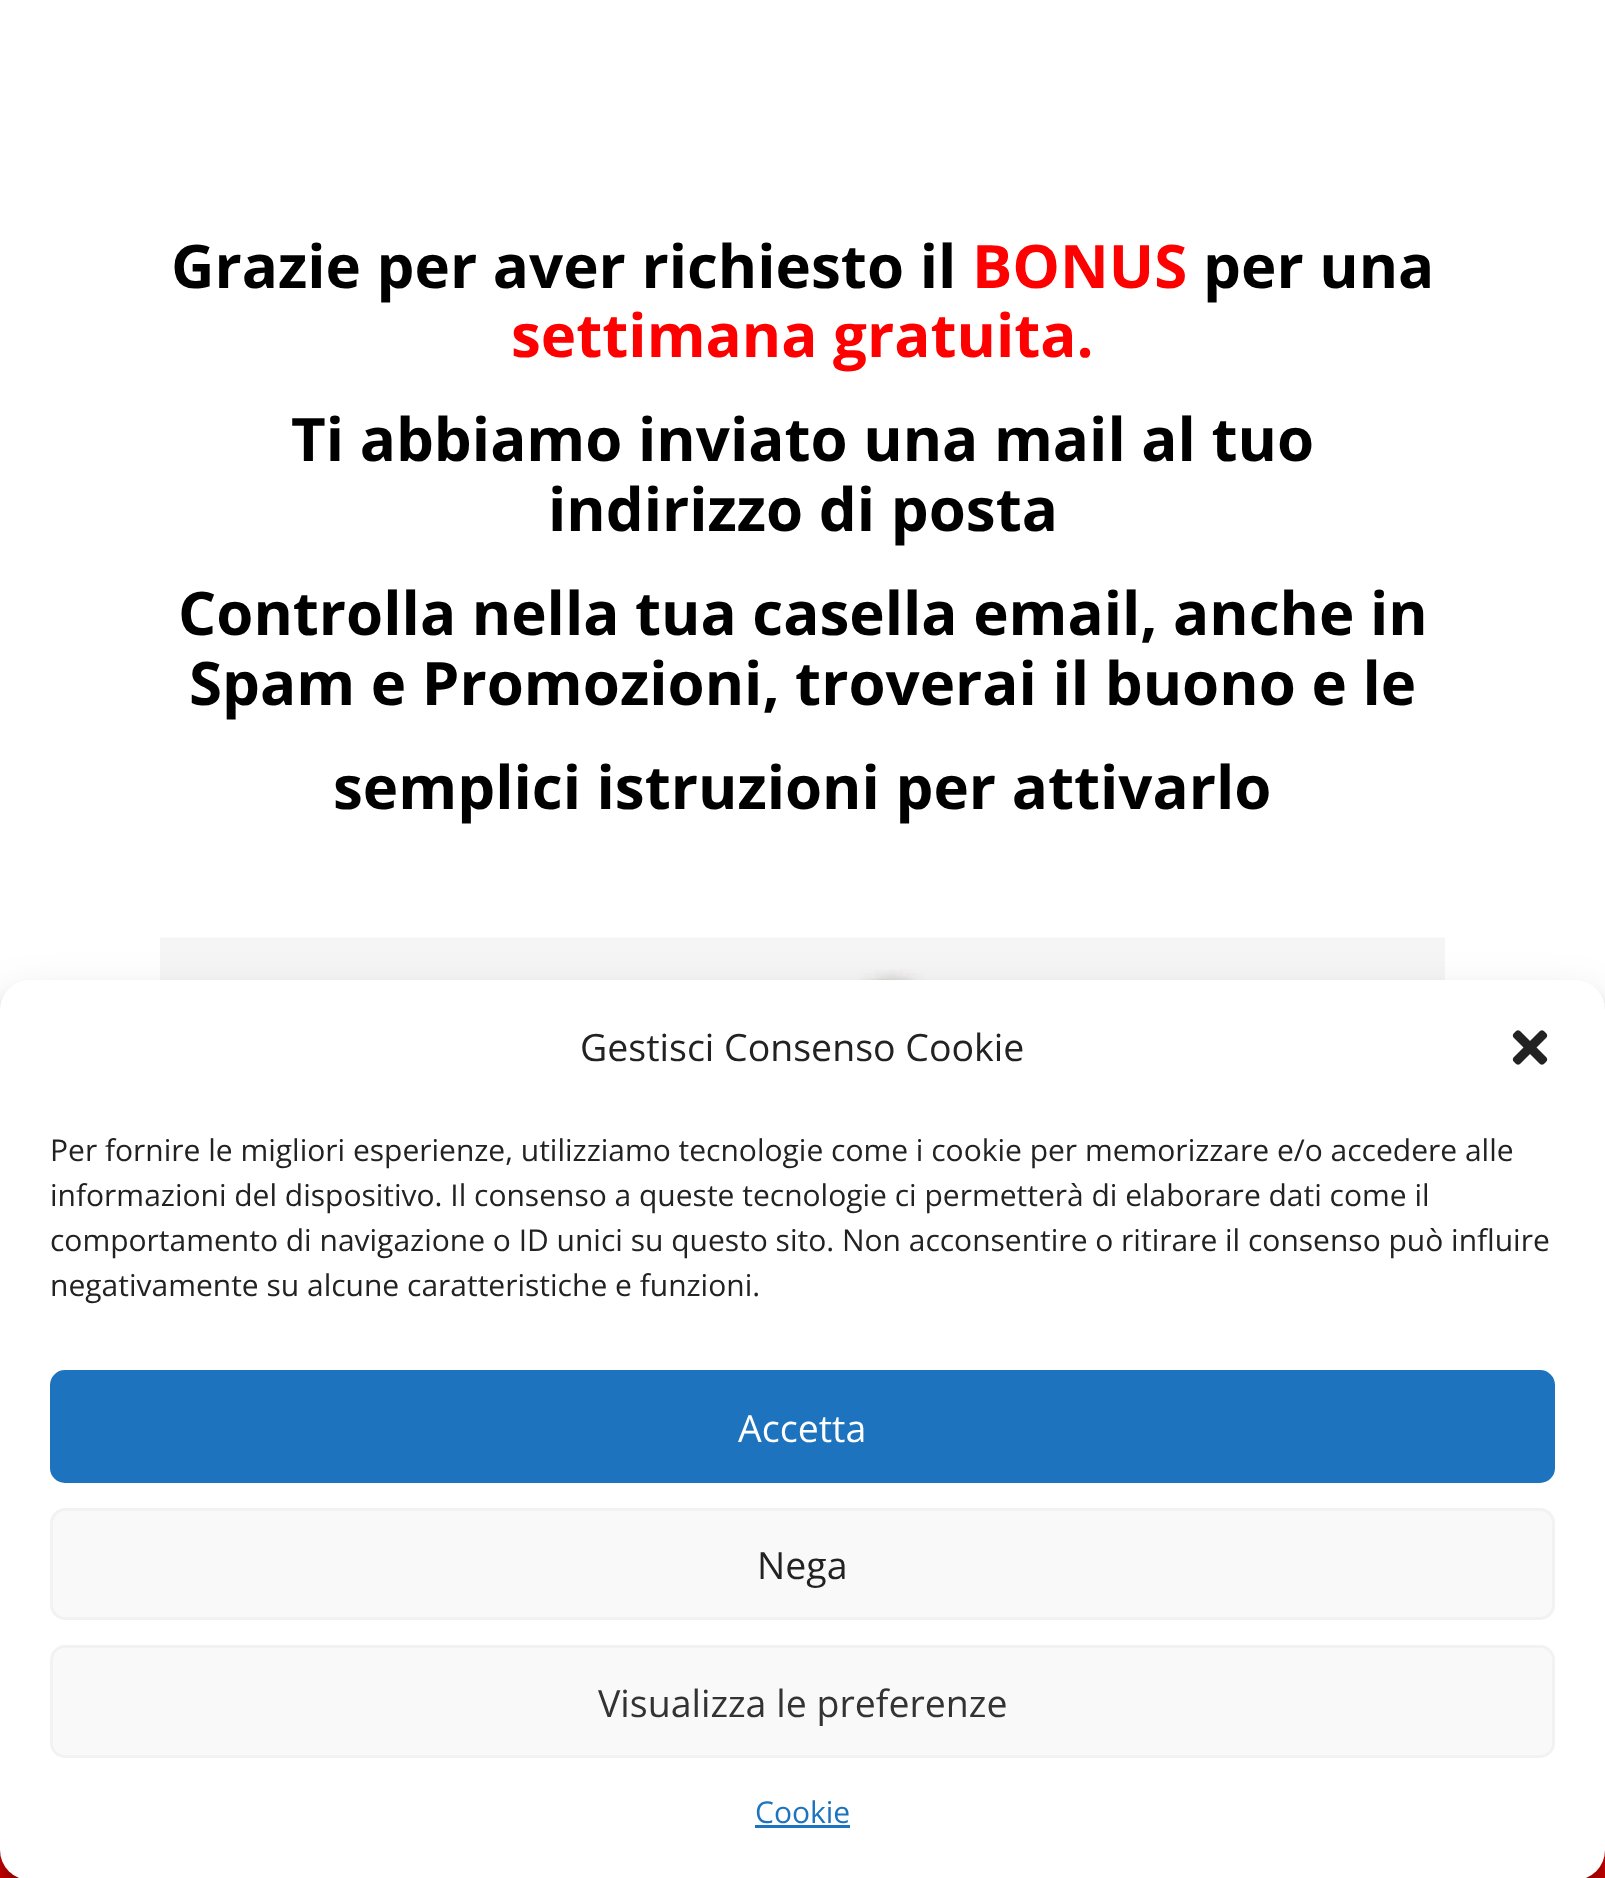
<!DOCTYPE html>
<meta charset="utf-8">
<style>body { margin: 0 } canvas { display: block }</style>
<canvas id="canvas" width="1605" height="1878"></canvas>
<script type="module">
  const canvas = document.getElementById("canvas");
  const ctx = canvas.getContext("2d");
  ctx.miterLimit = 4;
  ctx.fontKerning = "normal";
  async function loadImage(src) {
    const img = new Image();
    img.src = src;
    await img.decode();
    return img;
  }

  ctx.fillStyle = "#dd0000";
  ctx.fillRect(0, 0, 1605, 1878);
  ctx.fillStyle = "#ffffff";
  ctx.fillRect(0, 0, 1605, 1010);
  ctx.font = "bold 60px Open Sans";
  ctx.fillStyle = "#000000";
  ctx.fillText("Grazie per aver richiesto il", 171, 288);
  ctx.fillStyle = "#ff0000";
  ctx.fillText("BONUS", 972, 288);
  ctx.fillStyle = "#000000";
  ctx.fillText("per una", 1203, 288);
  ctx.fillStyle = "#ff0000";
  ctx.fillText("settimana gratuita.", 511, 357);
  ctx.fillStyle = "#000000";
  ctx.fillText("Ti abbiamo inviato una mail al tuo", 291, 461);
  ctx.fillText("indirizzo di posta", 548, 531);
  ctx.fillText("Controlla nella tua casella email, anche in", 178, 635);
  ctx.fillText("Spam e Promozioni, troverai il buono e le", 189, 705);
  ctx.fillText("semplici istruzioni per attivarlo", 333, 809);
  ctx.drawImage(await loadImage("img1.png"), 160, 937, 1285, 43);
  ctx.fillStyle = "rgba(0, 0, 0, 0.23)";
  ctx.filter = "blur(7.5px)";
  ctx.beginPath();
  ctx.roundRect(0, 995, 1605, 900, 30);
  ctx.fill();
  ctx.filter = "none";
  ctx.fillStyle = "rgba(0, 0, 0, 0.19)";
  ctx.filter = "blur(25px)";
  ctx.beginPath();
  ctx.roundRect(0, 1005, 1605, 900, 30);
  ctx.fill();
  ctx.filter = "none";
  ctx.fillStyle = "#ffffff";
  ctx.beginPath();
  ctx.roundRect(0, 980, 1605, 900, 30);
  ctx.fill();
  ctx.font = "37.5px Open Sans";
  ctx.fillStyle = "#222222";
  ctx.fillText("Gestisci Consenso Cookie", 580, 1061);
  ctx.drawImage(await loadImage("img2.png"), 1512, 1030, 36, 35);
  ctx.font = "30px Open Sans";
  ctx.fillText("Per fornire le migliori esperienze, utilizziamo tecnologie come i cookie per memorizzare e/o accedere alle", 50, 1161);
  ctx.fillText("informazioni del dispositivo. Il consenso a queste tecnologie ci permetterà di elaborare dati come il", 50, 1206);
  ctx.fillText("comportamento di navigazione o ID unici su questo sito. Non acconsentire o ritirare il consenso può influire", 50, 1251);
  ctx.fillText("negativamente su alcune caratteristiche e funzioni.", 50, 1296);
  ctx.fillStyle = "#1e73be";
  ctx.beginPath();
  ctx.roundRect(51.5, 1371.5, 1502, 110, 13.5);
  ctx.fill();
  ctx.strokeStyle = "#1e73be";
  ctx.lineWidth = 3;
  ctx.stroke();
  ctx.font = "37.5px Open Sans";
  ctx.fillStyle = "#ffffff";
  ctx.fillText("Accetta", 738, 1442);
  ctx.fillStyle = "#f9f9f9";
  ctx.beginPath();
  ctx.roundRect(51.5, 1509.5, 1502, 109, 13.5);
  ctx.fill();
  ctx.strokeStyle = "#f2f2f2";
  ctx.stroke();
  ctx.fillStyle = "#222222";
  ctx.fillText("Nega", 757, 1579);
  ctx.fillStyle = "#f9f9f9";
  ctx.beginPath();
  ctx.roundRect(51.5, 1646.5, 1502, 110, 13.5);
  ctx.fill();
  ctx.stroke();
  ctx.fillStyle = "#333333";
  ctx.fillText("Visualizza le preferenze", 598, 1717);
  ctx.font = "30px Open Sans";
  ctx.fillStyle = "#1e73be";
  ctx.fillText("Cookie", 755, 1823);
  ctx.fillRect(755, 1825, 95, 3);
</script>
